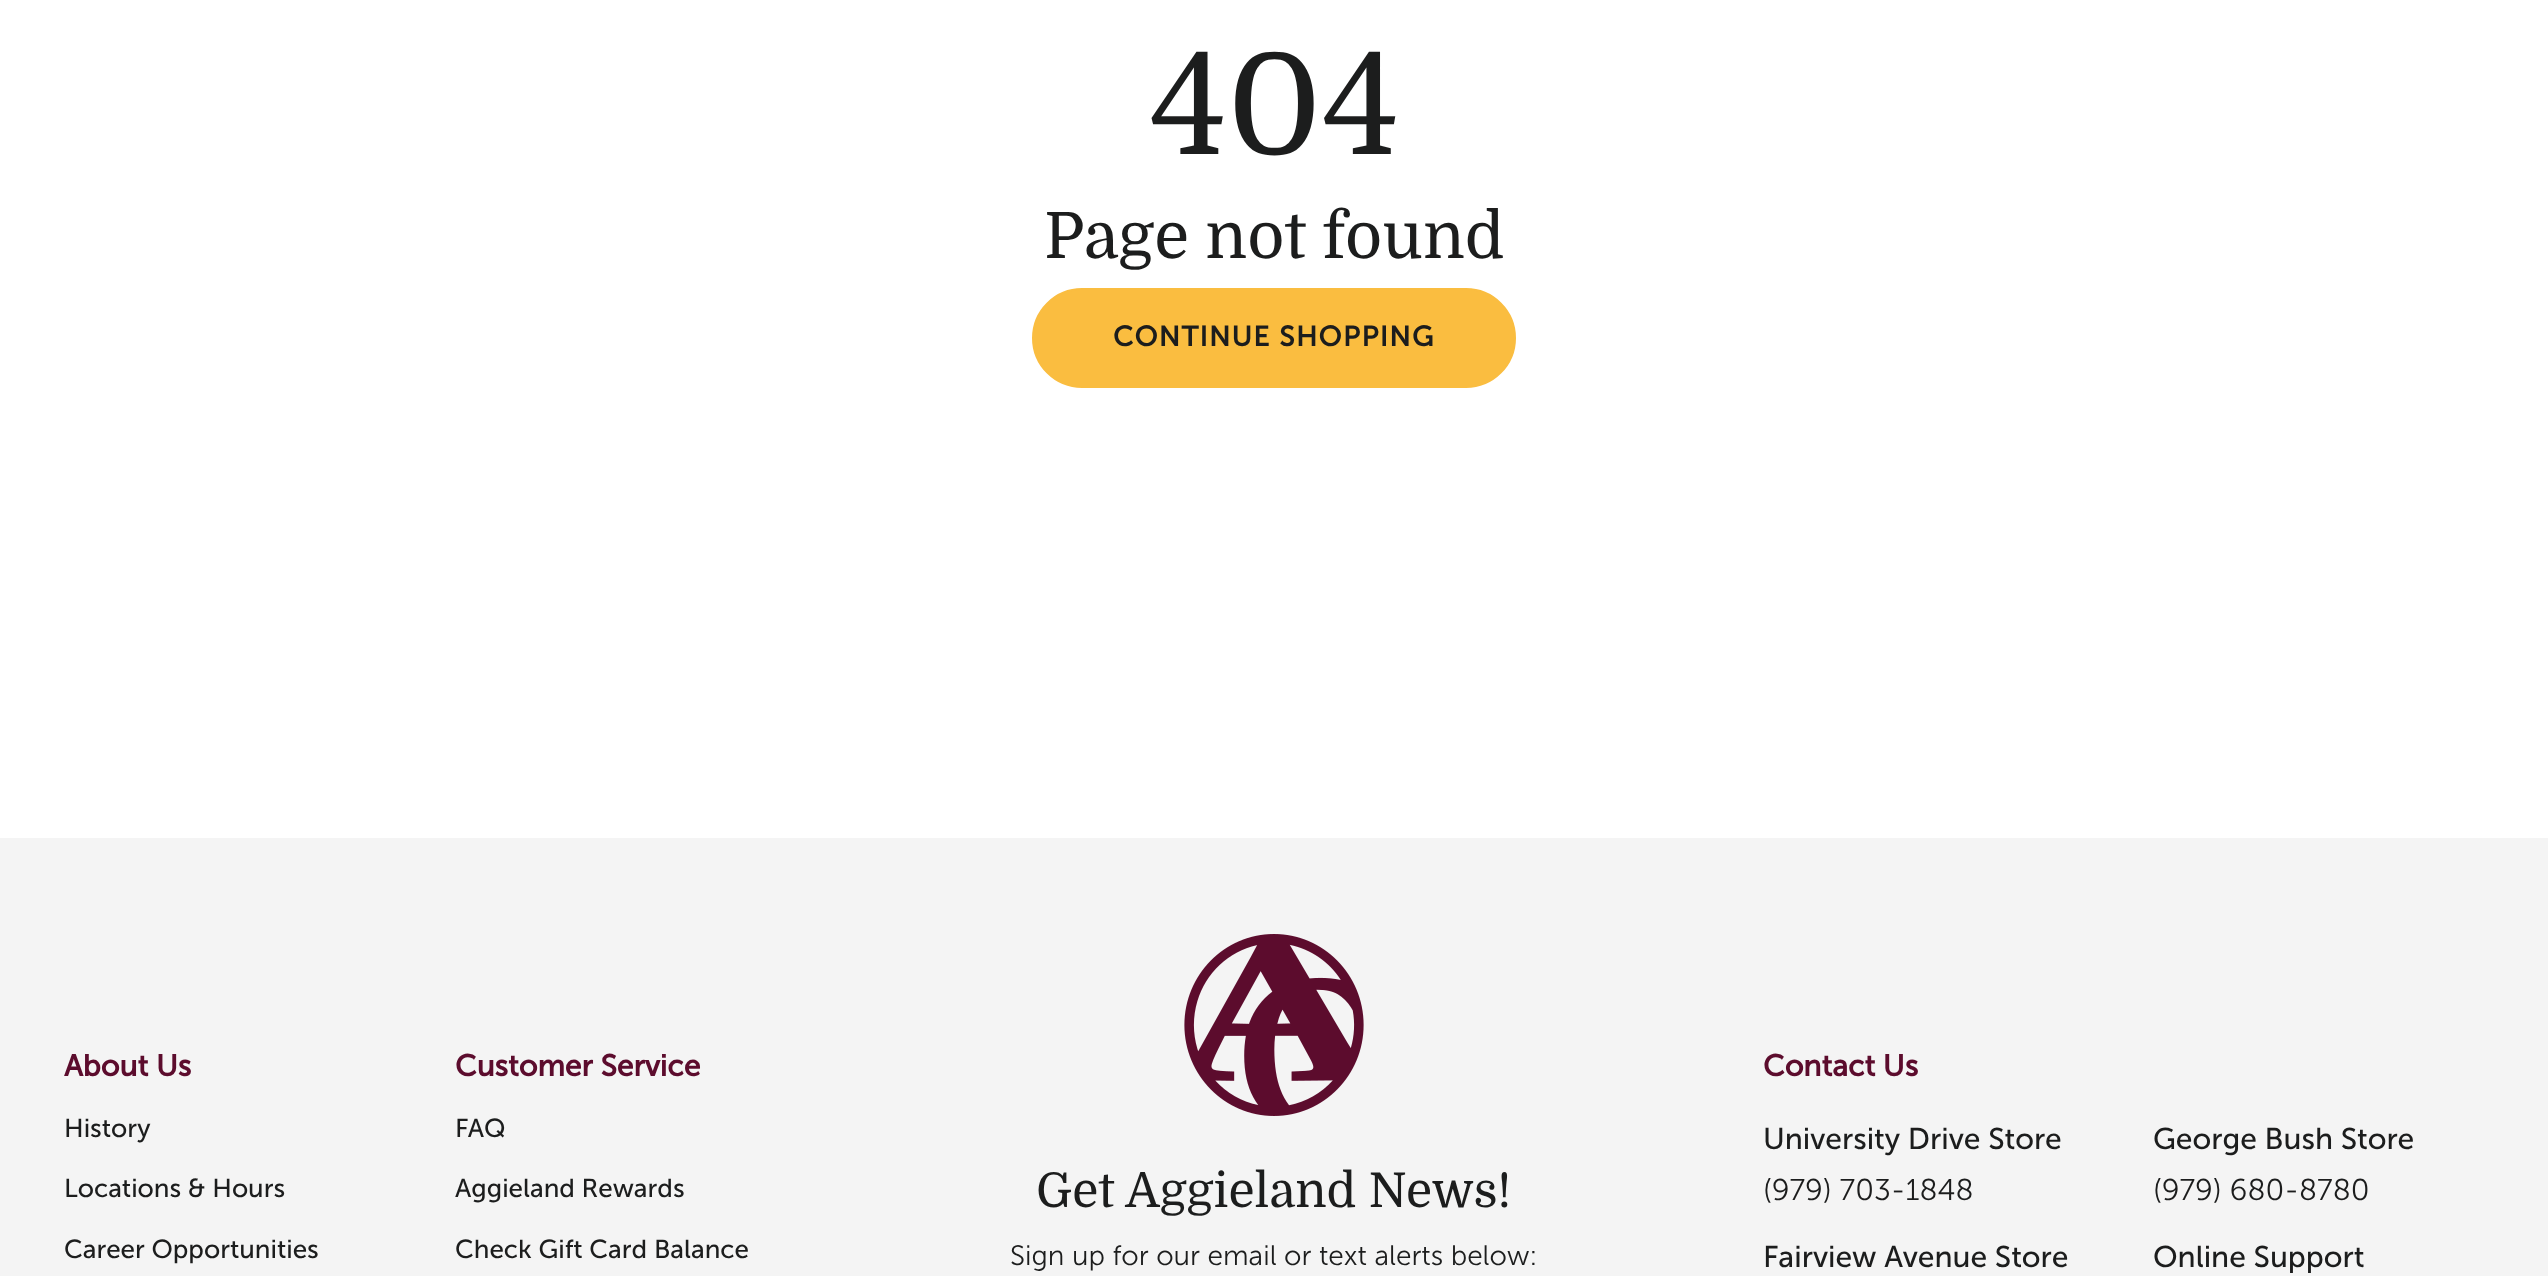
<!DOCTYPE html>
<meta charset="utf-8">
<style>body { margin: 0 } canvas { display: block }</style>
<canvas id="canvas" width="2548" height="1276"></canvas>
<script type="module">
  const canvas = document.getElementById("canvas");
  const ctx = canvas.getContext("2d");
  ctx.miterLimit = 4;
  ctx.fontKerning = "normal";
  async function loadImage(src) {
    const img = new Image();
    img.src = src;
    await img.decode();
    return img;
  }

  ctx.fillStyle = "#ffffff";
  ctx.fillRect(0, 0, 2548, 1276);
  ctx.font = "140px Domine";
  ctx.fillStyle = "#1c1d1d";
  ctx.fillText("404", 1149, 154);
  ctx.font = "64px Domine";
  ctx.fillText("Page not found", 1044, 258);
  ctx.fillStyle = "#fabd40";
  ctx.beginPath();
  ctx.roundRect(1033, 289, 482, 98, 49);
  ctx.fill();
  ctx.strokeStyle = "#fabd40";
  ctx.lineWidth = 2;
  ctx.stroke();
  ctx.letterSpacing = "1.4px";
  ctx.font = "bold 28px Museo Sans";
  ctx.fillStyle = "#1c1d1d";
  ctx.fillText("CONTINUE SHOPPING", 1113, 346);
  ctx.fillStyle = "#f4f4f4";
  ctx.fillRect(0, 838, 2548, 438);
  ctx.letterSpacing = "0px";
  ctx.font = "bold 30px Museo Sans";
  ctx.fillStyle = "#5c0c2d";
  ctx.fillText("About Us", 64, 1076);
  ctx.font = "26px Museo Sans";
  ctx.fillStyle = "#1c1d1d";
  ctx.fillText("History", 64, 1137);
  ctx.fillText("Locations & Hours", 64, 1197);
  ctx.fillText("Career Opportunities", 64, 1258);
  ctx.font = "bold 30px Museo Sans";
  ctx.fillStyle = "#5c0c2d";
  ctx.fillText("Customer Service", 455, 1076);
  ctx.font = "26px Museo Sans";
  ctx.fillStyle = "#1c1d1d";
  ctx.fillText("FAQ", 455, 1137);
  ctx.fillText("Aggieland Rewards", 455, 1197);
  ctx.fillText("Check Gift Card Balance", 455, 1258);
  ctx.drawImage(await loadImage("img1.png"), 1184, 934, 180, 182);
  ctx.font = "48px Domine";
  ctx.fillText("Get Aggieland News!", 1036, 1207);
  ctx.font = "300 28px Museo Sans";
  ctx.fillText("Sign up for our email or text alerts below:", 1010, 1265);
  ctx.font = "bold 30px Museo Sans";
  ctx.fillStyle = "#5c0c2d";
  ctx.fillText("Contact Us", 1763, 1076);
  ctx.font = "30px Museo Sans";
  ctx.fillStyle = "#1c1d1d";
  ctx.fillText("University Drive Store", 1763, 1149);
  ctx.font = "300 30px Museo Sans";
  ctx.fillText("(979) 703-1848", 1763, 1200);
  ctx.font = "30px Museo Sans";
  ctx.fillText("Fairview Avenue Store", 1763, 1267);
  ctx.fillText("George Bush Store", 2153, 1149);
  ctx.font = "300 30px Museo Sans";
  ctx.fillText("(979) 680-8780", 2153, 1200);
  ctx.font = "30px Museo Sans";
  ctx.fillText("Online Support", 2153, 1267);
</script>
